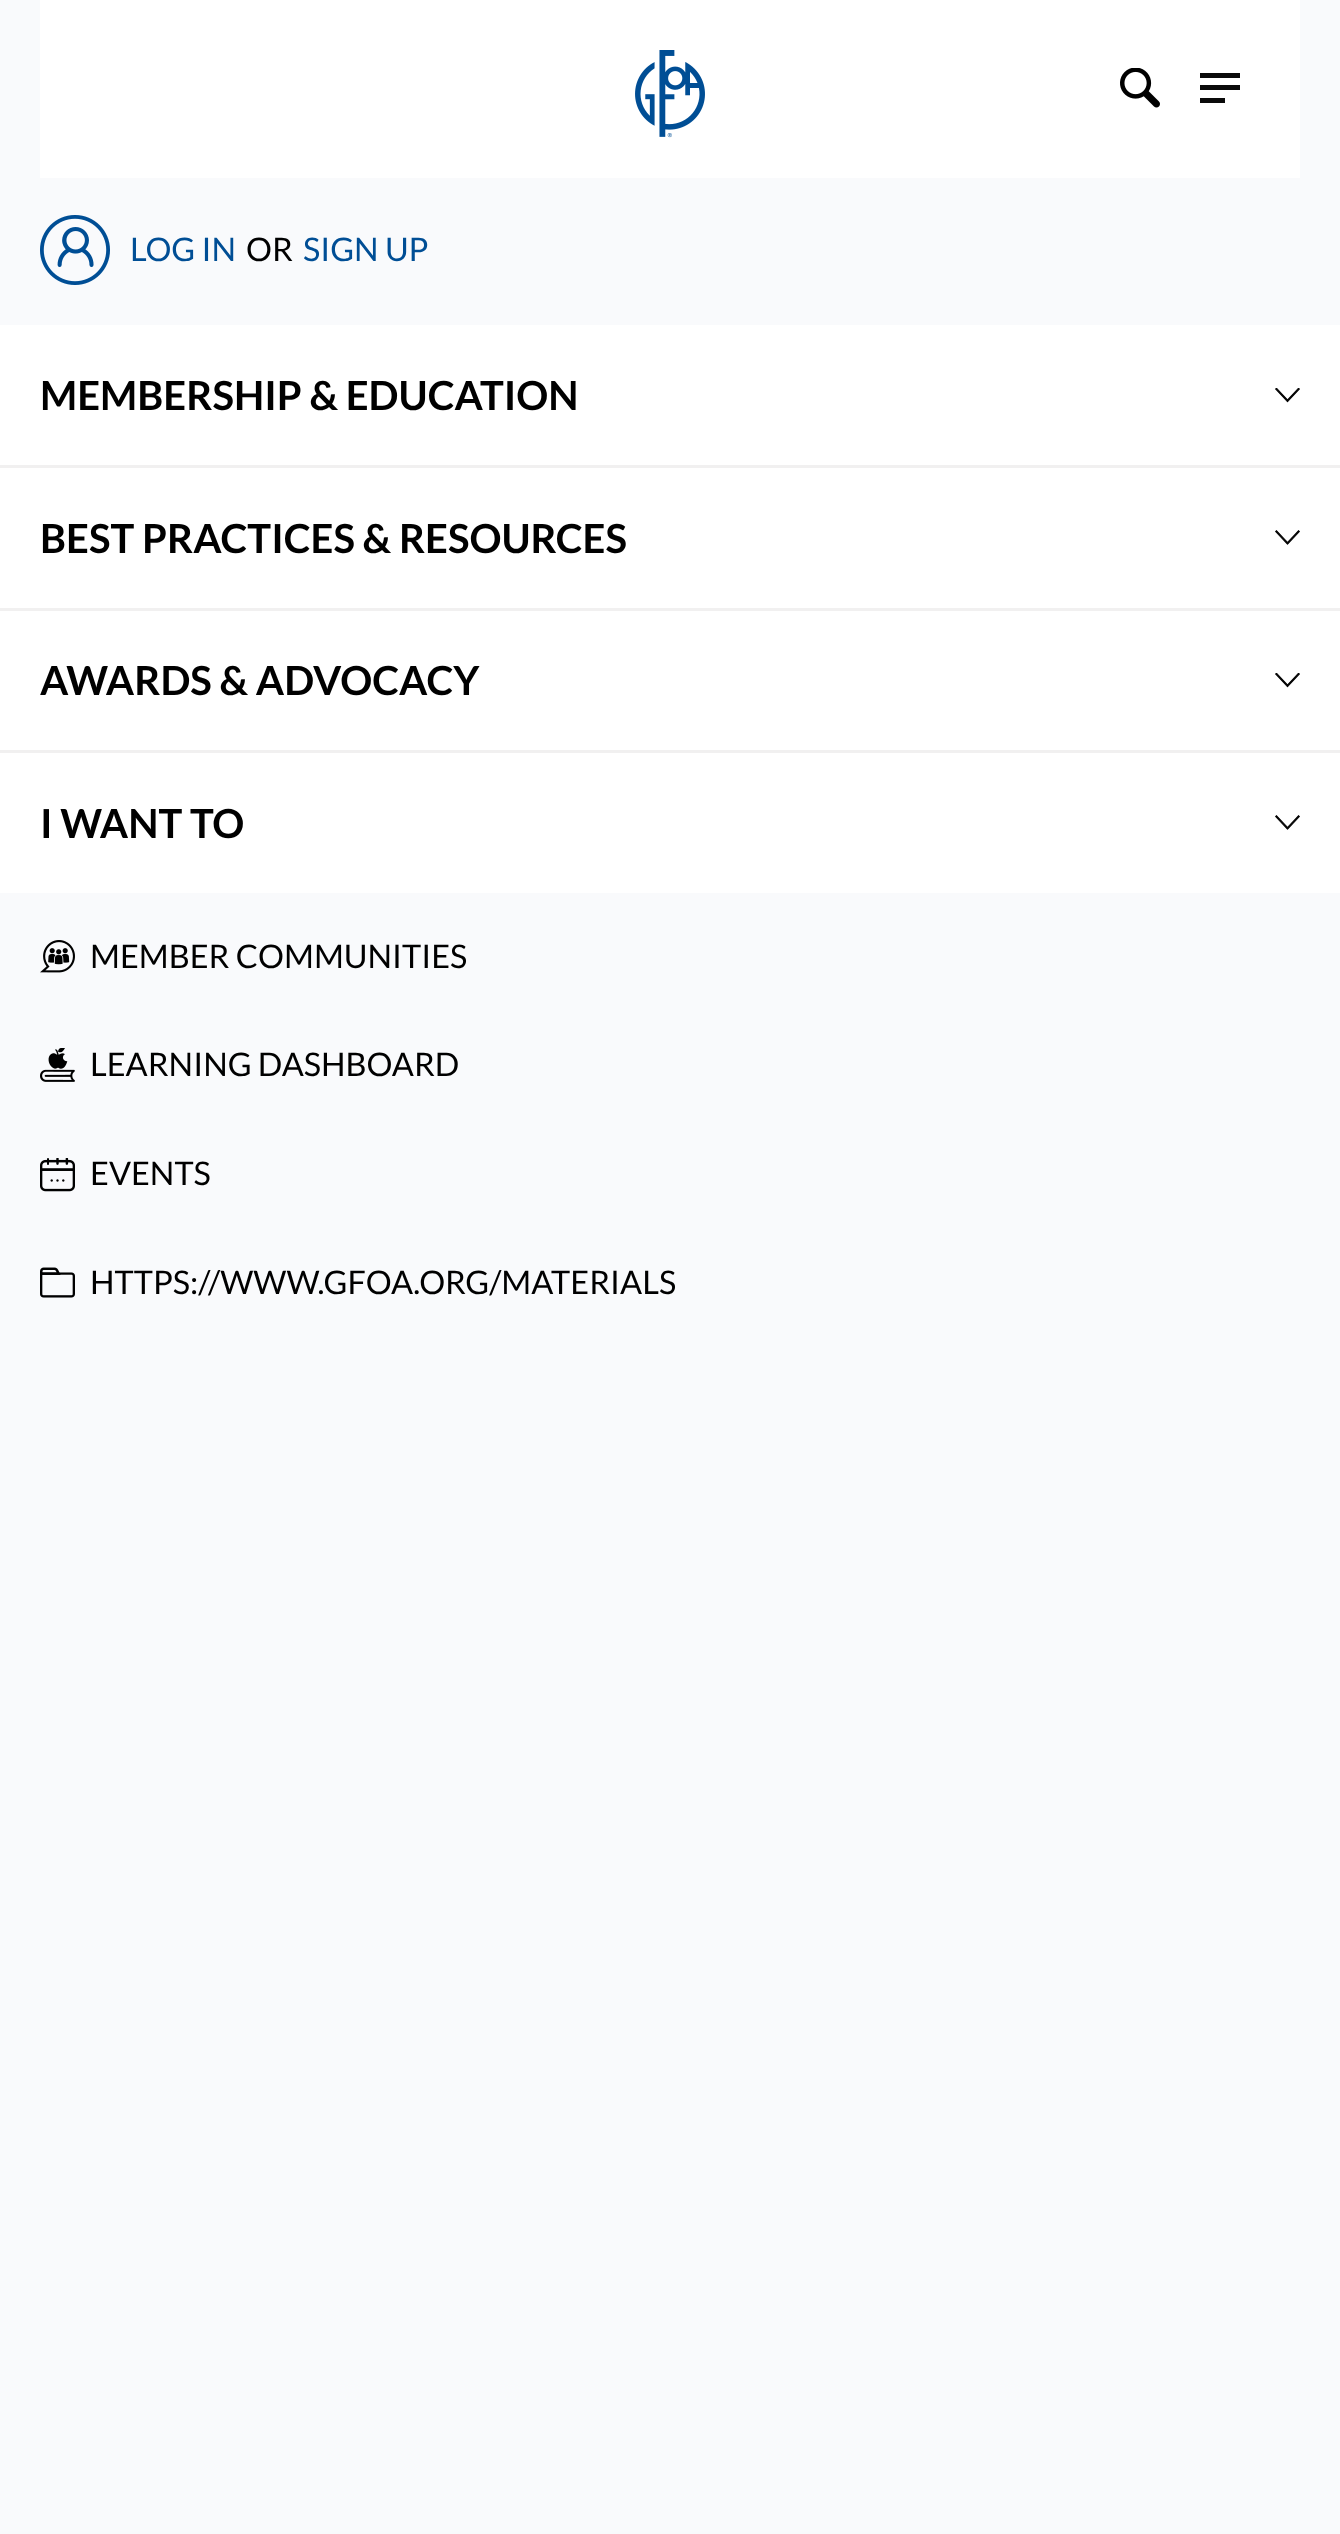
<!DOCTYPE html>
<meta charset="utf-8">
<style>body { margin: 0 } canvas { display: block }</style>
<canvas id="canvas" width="1340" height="2534"></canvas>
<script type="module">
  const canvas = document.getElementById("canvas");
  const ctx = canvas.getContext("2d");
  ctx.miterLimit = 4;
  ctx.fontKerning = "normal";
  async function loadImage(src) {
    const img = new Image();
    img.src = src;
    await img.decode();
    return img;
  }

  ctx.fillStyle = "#f9fafc";
  ctx.fillRect(0, 0, 1340, 2534);
  ctx.fillStyle = "#ffffff";
  ctx.fillRect(40, 0, 1260, 178);
  ctx.drawImage(await loadImage("img1.png"), 635, 50, 70, 88);
  ctx.drawImage(await loadImage("img2.png"), 1120, 68, 40, 40);
  ctx.fillStyle = "#0a0a0a";
  ctx.fillRect(1200, 73, 40, 5);
  ctx.fillRect(1200, 85, 40, 5);
  ctx.fillRect(1200, 98, 25, 5);
  ctx.drawImage(await loadImage("img3.png"), 40, 215, 70, 70);
  ctx.font = "32.5px Lato";
  ctx.fillStyle = "#004e95";
  ctx.fillText("LOG IN", 130, 261);
  ctx.fillStyle = "#000000";
  ctx.fillText("OR", 246, 261);
  ctx.fillStyle = "#004e95";
  ctx.fillText("SIGN UP", 303, 261);
  ctx.fillStyle = "#ffffff";
  ctx.fillRect(0, 325, 1340, 140);
  ctx.font = "bold 40px Lato";
  ctx.fillStyle = "#000000";
  ctx.fillText("MEMBERSHIP & EDUCATION", 40, 410);
  ctx.drawImage(await loadImage("img4.png"), 1275, 388, 25, 15);
  ctx.fillStyle = "#ffffff";
  ctx.fillRect(0, 468, 1340, 140);
  ctx.fillStyle = "#f1f0f0";
  ctx.fillRect(0, 465, 1340, 3);
  ctx.fillStyle = "#000000";
  ctx.fillText("BEST PRACTICES & RESOURCES", 40, 553);
  ctx.drawImage(await loadImage("img5.png"), 1275, 530, 25, 15);
  ctx.fillStyle = "#ffffff";
  ctx.fillRect(0, 611, 1340, 139);
  ctx.fillStyle = "#f1f0f0";
  ctx.fillRect(0, 608, 1340, 3);
  ctx.fillStyle = "#000000";
  ctx.fillText("AWARDS & ADVOCACY", 40, 695);
  ctx.drawImage(await loadImage("img4.png"), 1275, 673, 25, 15);
  ctx.fillStyle = "#ffffff";
  ctx.fillRect(0, 753, 1340, 140);
  ctx.fillStyle = "#f1f0f0";
  ctx.fillRect(0, 750, 1340, 3);
  ctx.fillStyle = "#000000";
  ctx.fillText("I WANT TO", 40, 838);
  ctx.drawImage(await loadImage("img5.png"), 1275, 815, 25, 15);
  ctx.drawImage(await loadImage("img6.png"), 40, 940, 35, 33);
  ctx.font = "32.5px Lato";
  ctx.fillText("MEMBER COMMUNITIES", 90, 968);
  ctx.drawImage(await loadImage("img7.png"), 40, 1048, 35, 34);
  ctx.fillText("LEARNING DASHBOARD", 90, 1076);
  ctx.drawImage(await loadImage("img8.png"), 40, 1158, 35, 34);
  ctx.fillText("EVENTS", 90, 1185);
  ctx.drawImage(await loadImage("img9.png"), 40, 1267, 35, 31);
  ctx.fillText("HTTPS://WWW.GFOA.ORG/MATERIALS", 90, 1294);
</script>
